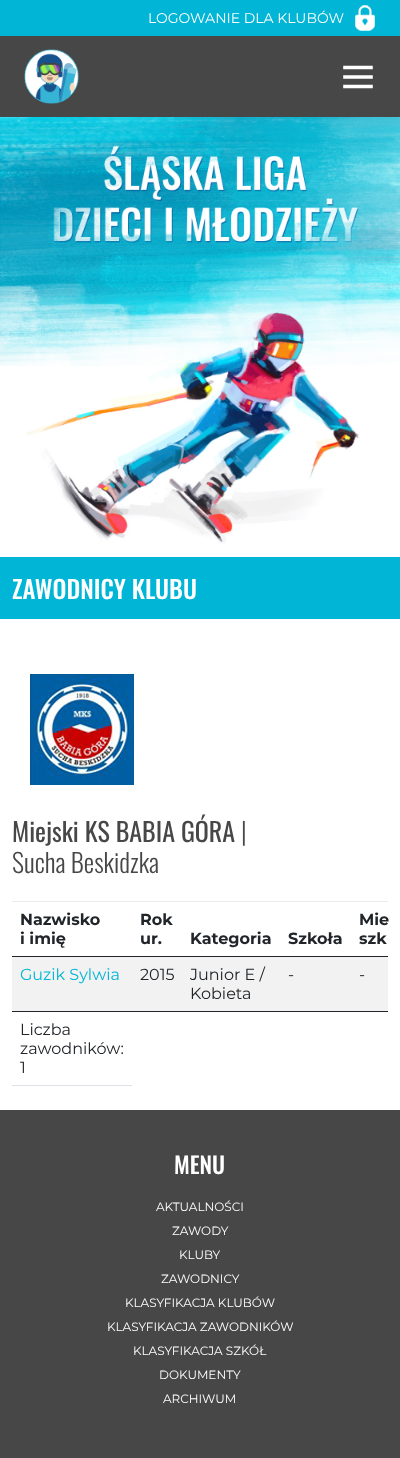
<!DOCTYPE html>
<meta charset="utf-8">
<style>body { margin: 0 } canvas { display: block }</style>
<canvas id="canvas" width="400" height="1458"></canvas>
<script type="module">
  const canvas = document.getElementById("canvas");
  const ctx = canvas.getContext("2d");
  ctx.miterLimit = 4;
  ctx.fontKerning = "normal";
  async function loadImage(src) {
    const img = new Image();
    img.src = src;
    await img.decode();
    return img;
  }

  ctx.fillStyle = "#ffffff";
  ctx.fillRect(0, 0, 400, 1458);
  ctx.fillStyle = "#00b5d6";
  ctx.fillRect(0, 0, 400, 36);
  ctx.font = "14px Montserrat";
  ctx.fillStyle = "#ffffff";
  ctx.fillText("LOGOWANIE DLA KLUBÓW", 148, 23);
  ctx.drawImage(await loadImage("img1.png"), 355, 5, 20, 26);
  ctx.fillStyle = "#474747";
  ctx.fillRect(0, 36, 400, 81);
  ctx.drawImage(await loadImage("img2.png"), 24, 49, 55, 55);
  ctx.beginPath();
  ctx.moveTo(345, 67.5);
  ctx.lineTo(371, 67.5);
  ctx.moveTo(345, 77);
  ctx.lineTo(371, 77);
  ctx.moveTo(345, 86.5);
  ctx.lineTo(371, 86.5);
  ctx.strokeStyle = "#ffffff";
  ctx.lineWidth = 3.6;
  ctx.lineCap = "square";
  ctx.stroke();
  ctx.drawImage(await loadImage("img3.png"), 0, 117, 400, 427);
  ctx.fillStyle = "#00b5d6";
  ctx.fillRect(0, 557, 400, 62);
  ctx.font = "500 24.75px Oswald";
  ctx.fillStyle = "#ffffff";
  ctx.fillText("ZAWODNICY KLUBU", 12, 599);
  ctx.fillStyle = "#ebebeb";
  ctx.fillRect(12, 901, 376, 1);
  ctx.drawImage(await loadImage("img4.png"), 30, 674, 104, 111);
  ctx.font = "26px Oswald";
  ctx.fillStyle = "#474747";
  ctx.fillText("Miejski KS BABIA GÓRA", 12, 842);
  ctx.font = "300 26px Oswald";
  ctx.fillText("|", 241, 842);
  ctx.fillText("Sucha Beskidzka", 12, 873);
  ctx.font = "bold 16px Montserrat";
  ctx.fillStyle = "#212529";
  ctx.fillText("Nazwisko", 20, 925);
  ctx.fillText("i imię", 20, 944);
  ctx.fillText("Rok", 140, 925);
  ctx.fillText("ur.", 140, 944);
  ctx.fillText("Kategoria", 190, 944);
  ctx.fillText("Szkoła", 288, 944);
  ctx.fillRect(12, 956, 376, 1);
  ctx.fillText("Mie", 359, 925);
  ctx.fillText("szk", 359, 944);
  ctx.fillStyle = "#f2f2f2";
  ctx.fillRect(12, 957, 376, 54);
  ctx.font = "16px Montserrat";
  ctx.fillStyle = "#00b5d6";
  ctx.fillText("Guzik Sylwia", 20, 980);
  ctx.fillStyle = "#212529";
  ctx.fillText("2015", 140, 980);
  ctx.fillText("Junior E /", 190, 980);
  ctx.fillText("Kobieta", 190, 999);
  ctx.fillText("-", 288, 980);
  ctx.fillRect(12, 1011, 376, 1);
  ctx.fillText("-", 359, 980);
  ctx.fillStyle = "#dee2e6";
  ctx.fillRect(12, 1085, 120, 1);
  ctx.fillStyle = "#212529";
  ctx.fillText("Liczba", 20, 1035);
  ctx.fillText("zawodników:", 20, 1054);
  ctx.fillText("1", 20, 1073);
  ctx.fillStyle = "#474747";
  ctx.fillRect(0, 1110, 400, 348);
  ctx.font = "500 23px Oswald";
  ctx.fillStyle = "#ffffff";
  ctx.fillText("MENU", 174, 1174);
  ctx.font = "12px Montserrat";
  ctx.fillText("AKTUALNOŚCI", 156, 1211);
  ctx.fillText("ZAWODY", 172, 1235);
  ctx.fillText("KLUBY", 179, 1259);
  ctx.fillText("ZAWODNICY", 161, 1283);
  ctx.fillText("KLASYFIKACJA KLUBÓW", 125, 1307);
  ctx.fillText("KLASYFIKACJA ZAWODNIKÓW", 107, 1331);
  ctx.fillText("KLASYFIKACJA SZKÓŁ", 133, 1355);
  ctx.fillText("DOKUMENTY", 159, 1379);
  ctx.fillText("ARCHIWUM", 163, 1403);
</script>
